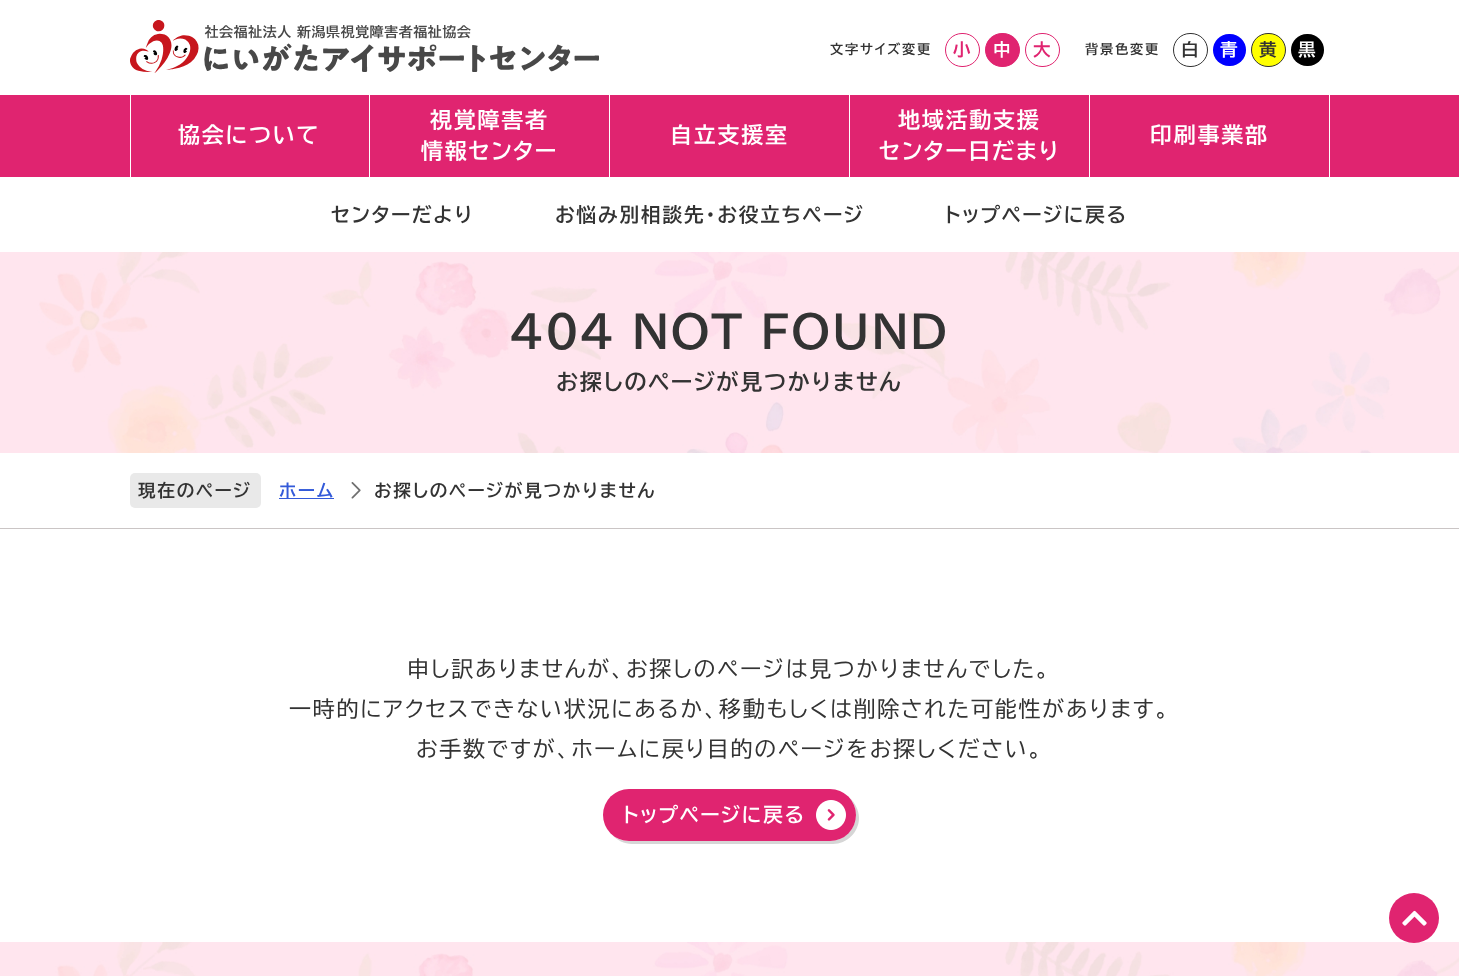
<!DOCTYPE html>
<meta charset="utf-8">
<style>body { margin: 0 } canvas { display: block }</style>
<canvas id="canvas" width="1459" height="976"></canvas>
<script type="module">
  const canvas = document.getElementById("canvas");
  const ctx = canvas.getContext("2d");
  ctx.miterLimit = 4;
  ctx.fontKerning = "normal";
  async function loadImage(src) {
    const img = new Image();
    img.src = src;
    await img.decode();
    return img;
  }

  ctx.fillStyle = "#ffffff";
  ctx.fillRect(0, 0, 1459, 976);
  ctx.drawImage(await loadImage("img1.png"), 130, 20, 469, 53);
  ctx.letterSpacing = "1.75px";
  ctx.font = "bold 13.25px BIZ UDPGothic";
  ctx.fillStyle = "#333333";
  ctx.fillText("文字サイズ変更", 830, 54);
  ctx.beginPath();
  ctx.roundRect(945.5, 33.5, 34, 33, 16.5);
  ctx.strokeStyle = "#e02470";
  ctx.stroke();
  ctx.font = "bold 17.6px BIZ UDPGothic";
  ctx.fillStyle = "#e02470";
  ctx.fillText("小", 953, 56);
  ctx.beginPath();
  ctx.roundRect(985.5, 33.5, 34, 33, 16.5);
  ctx.fill();
  ctx.stroke();
  ctx.fillStyle = "#ffffff";
  ctx.fillText("中", 993, 56);
  ctx.beginPath();
  ctx.roundRect(1025.5, 33.5, 34, 33, 16.5);
  ctx.stroke();
  ctx.fillStyle = "#e02470";
  ctx.fillText("大", 1033, 56);
  ctx.font = "bold 13.25px BIZ UDPGothic";
  ctx.fillStyle = "#333333";
  ctx.fillText("背景色変更", 1085, 54);
  ctx.beginPath();
  ctx.roundRect(1173.5, 33.5, 34, 33, 16.5);
  ctx.strokeStyle = "#333333";
  ctx.stroke();
  ctx.font = "bold 17.6px BIZ UDPGothic";
  ctx.fillText("白", 1181, 56);
  ctx.fillStyle = "#0000ff";
  ctx.beginPath();
  ctx.roundRect(1213, 34, 33, 32, 16);
  ctx.fill();
  ctx.fillStyle = "#ffffff";
  ctx.fillText("青", 1220, 56);
  ctx.fillStyle = "#ffff00";
  ctx.beginPath();
  ctx.roundRect(1251.5, 33.5, 34, 33, 16.5);
  ctx.fill();
  ctx.stroke();
  ctx.fillStyle = "#333333";
  ctx.fillText("黄", 1259, 56);
  ctx.fillStyle = "#000000";
  ctx.beginPath();
  ctx.roundRect(1291, 34, 33, 32, 16);
  ctx.fill();
  ctx.fillStyle = "#ffffff";
  ctx.fillText("黒", 1298, 56);
  ctx.fillStyle = "#e02470";
  ctx.fillRect(0, 95, 1459, 82);
  ctx.fillStyle = "#ffffff";
  ctx.fillRect(130, 95, 1, 82);
  ctx.font = "bold 22px BIZ UDPGothic";
  ctx.fillText("協会について", 178, 143);
  ctx.fillRect(369, 95, 1, 82);
  ctx.fillText("視覚障害者", 430, 128);
  ctx.fillText("情報センター", 421, 159);
  ctx.fillRect(609, 95, 1, 82);
  ctx.fillText("自立支援室", 670, 143);
  ctx.fillRect(849, 95, 1, 82);
  ctx.fillText("地域活動支援", 898, 128);
  ctx.fillText("センター日だまり", 879, 159);
  ctx.fillRect(1089, 95, 1, 82);
  ctx.fillText("印刷事業部", 1150, 143);
  ctx.fillRect(1329, 95, 1, 82);
  ctx.font = "bold 19.75px BIZ UDPGothic";
  ctx.fillStyle = "#333333";
  ctx.fillText("センターだより", 331, 222);
  ctx.fillText("お悩み別相談先・お役立ちページ", 555, 222);
  ctx.fillText("トップページに戻る", 945, 222);
  ctx.drawImage(await loadImage("img2.png"), 0, 252, 1459, 201);
  ctx.font = "bold 44px BIZ UDPGothic";
  ctx.fillText("404 NOT FOUND", 510, 348);
  ctx.font = "bold 22px BIZ UDPGothic";
  ctx.fillText("お探しのページが見つかりません", 556, 390);
  ctx.fillStyle = "#cac5c5";
  ctx.fillRect(0, 528, 1459, 1);
  ctx.fillStyle = "#e9e9e9";
  ctx.beginPath();
  ctx.roundRect(130, 473, 131, 35, 5);
  ctx.fill();
  ctx.font = "bold 17.6px BIZ UDPGothic";
  ctx.fillStyle = "#333333";
  ctx.fillText("現在のページ", 138, 497);
  ctx.fillStyle = "#335ad9";
  ctx.fillRect(279, 498, 55, 1);
  ctx.fillText("ホーム", 279, 497);
  ctx.drawImage(await loadImage("img3.png"), 351, 482, 10, 17);
  ctx.fillStyle = "#333333";
  ctx.fillText("お探しのページが見つかりません", 374, 497);
  ctx.font = "22px BIZ UDPGothic";
  ctx.fillText("申し訳ありませんが、お探しのページは見つかりませんでした。", 407, 677);
  ctx.fillText("一時的にアクセスできない状況にあるか、移動もしくは削除された可能性があります。", 289, 717);
  ctx.fillText("お手数ですが、ホームに戻り目的のページをお探しください。", 416, 757);
  ctx.fillStyle = "#d6d6d6";
  ctx.beginPath();
  ctx.moveTo(612, 835);
  ctx.bezierCurveTo(617, 840, 624, 844, 632, 844);
  ctx.lineTo(833, 844);
  ctx.bezierCurveTo(847, 844, 859, 832, 859, 818);
  ctx.bezierCurveTo(859, 810, 855, 803, 850, 798);
  ctx.bezierCurveTo(854, 803, 856, 809, 856, 815);
  ctx.bezierCurveTo(856, 829, 844, 841, 830, 841);
  ctx.lineTo(629, 841);
  ctx.bezierCurveTo(623, 841, 617, 839, 612, 835);
  ctx.closePath();
  ctx.fill();
  ctx.fillStyle = "#e02470";
  ctx.beginPath();
  ctx.roundRect(603, 789, 253, 52, 26);
  ctx.fill();
  ctx.drawImage(await loadImage("img4.png"), 816, 800, 30, 30);
  ctx.font = "bold 19.75px BIZ UDPGothic";
  ctx.fillStyle = "#ffffff";
  ctx.fillText("トップページに戻る", 623, 822);
  ctx.drawImage(await loadImage("img6.png"), 0, 942, 1459, 34);
  ctx.fillStyle = "#e02470";
  ctx.beginPath();
  ctx.arc(1414, 918, 25, 0, Math.PI * 2);
  ctx.fill();
  ctx.drawImage(await loadImage("img5.png"), 1402, 910, 25, 16);
</script>
